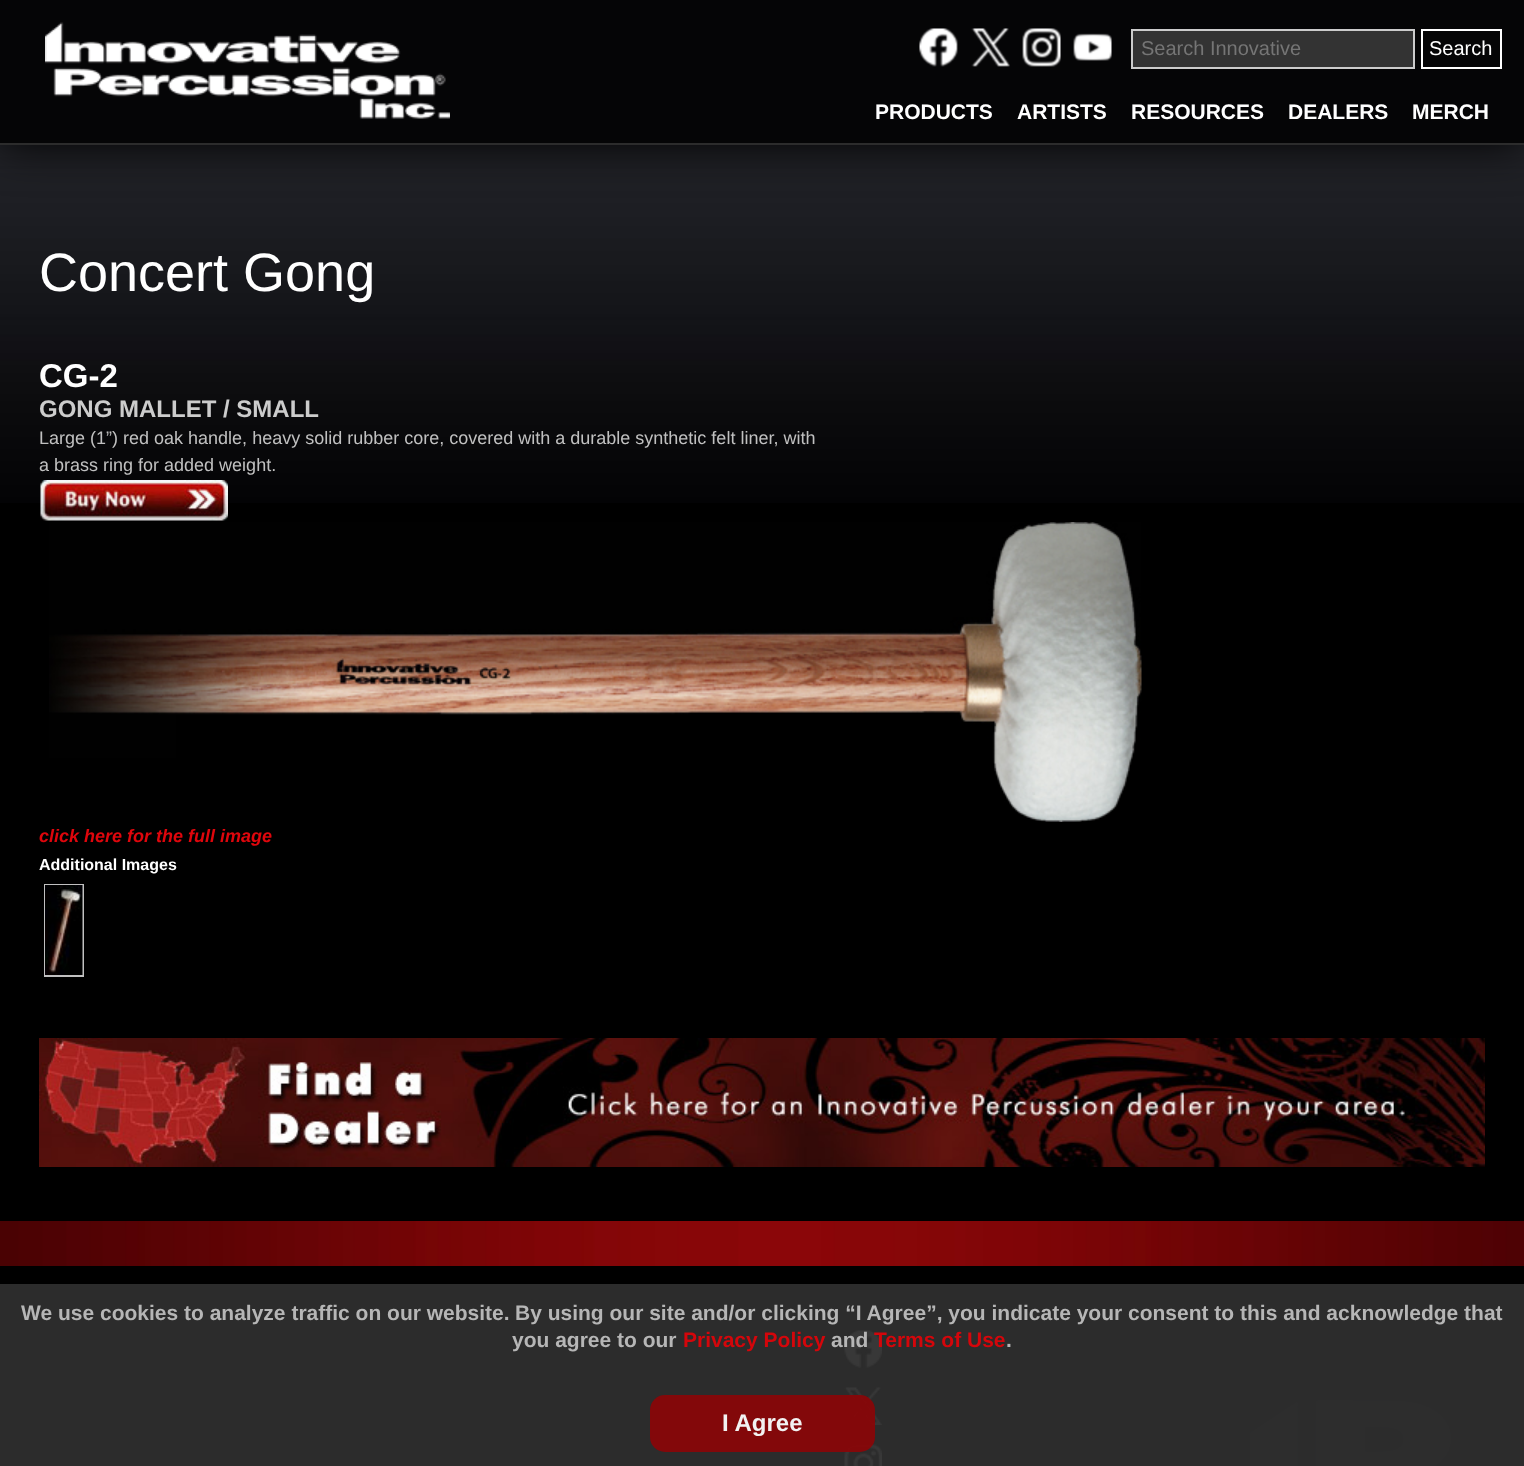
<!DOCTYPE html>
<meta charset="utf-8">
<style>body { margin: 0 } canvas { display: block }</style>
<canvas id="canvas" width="1524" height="1466"></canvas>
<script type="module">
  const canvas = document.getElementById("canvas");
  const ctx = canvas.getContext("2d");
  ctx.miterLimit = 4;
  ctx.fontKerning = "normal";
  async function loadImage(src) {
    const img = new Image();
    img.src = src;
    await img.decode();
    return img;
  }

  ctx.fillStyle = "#000000";
  ctx.fillRect(0, 0, 1524, 1466);
  ctx.fillStyle = "#2c2c2c";
  ctx.fillRect(0, 1284, 1524, 182);
  ctx.drawImage(await loadImage("img6.png"), 0, 145, 1524, 358);
  ctx.fillStyle = "#000000";
  ctx.filter = "blur(22.5px)";
  ctx.beginPath();
  ctx.rect(0, 0, 1524, 144);
  ctx.fill();
  ctx.filter = "none";
  ctx.fillStyle = "#050506";
  ctx.fillRect(0, 0, 1524, 143);
  ctx.fillStyle = "#2c2c2c";
  ctx.fillRect(0, 143, 1524, 2);
  ctx.drawImage(await loadImage("img1.png"), 45, 22, 405, 97);
  ctx.drawImage(await loadImage("img2.png"), 919, 28, 39, 39);
  ctx.drawImage(await loadImage("img3.png"), 971, 28, 39, 39);
  ctx.drawImage(await loadImage("img4.png"), 1022, 28, 39, 39);
  ctx.drawImage(await loadImage("img5.png"), 1073, 33, 39, 28);
  ctx.fillStyle = "#333333";
  ctx.beginPath();
  ctx.rect(1132, 30, 282, 38);
  ctx.fill();
  ctx.strokeStyle = "#cccccc";
  ctx.lineWidth = 2;
  ctx.stroke();
  ctx.font = "20px Liberation Sans";
  ctx.fillStyle = "#757575";
  ctx.fillText("Search Innovative", 1141, 55);
  ctx.strokeStyle = "#ffffff";
  ctx.strokeRect(1422, 30, 79, 38);
  ctx.fillStyle = "#ffffff";
  ctx.fillText("Search", 1429, 55);
  ctx.font = "bold 21px Liberation Sans";
  ctx.fillText("PRODUCTS", 875, 119);
  ctx.fillText("ARTISTS", 1017, 119);
  ctx.fillText("RESOURCES", 1131, 119);
  ctx.fillText("DEALERS", 1288, 119);
  ctx.fillText("MERCH", 1412, 119);
  ctx.font = "54px Liberation Sans";
  ctx.fillText("Concert Gong", 39, 291);
  ctx.font = "bold 33px Liberation Sans";
  ctx.fillText("CG-2", 39, 387);
  ctx.font = "bold 24px Liberation Sans";
  ctx.fillStyle = "#cccccc";
  ctx.fillText("GONG MALLET / SMALL", 39, 417);
  ctx.font = "18px Liberation Sans";
  ctx.fillStyle = "#c0c0c0";
  ctx.fillText("Large (1”) red oak handle, heavy solid rubber core, covered with a durable synthetic felt liner, with", 39, 444);
  ctx.fillText("a brass ring for added weight.", 39, 471);
  ctx.drawImage(await loadImage("img7.png"), 40, 480, 188, 41);
  ctx.drawImage(await loadImage("img8.png"), 49, 522, 1093, 300);
  ctx.font = "italic bold 18px Liberation Sans";
  ctx.fillStyle = "#df060c";
  ctx.fillText("click here for the full image", 39, 842);
  ctx.font = "bold 16px Liberation Sans";
  ctx.fillStyle = "#ffffff";
  ctx.fillText("Additional Images", 39, 870);
  ctx.strokeStyle = "#c0c0c0";
  ctx.strokeRect(45, 885, 38, 91);
  ctx.drawImage(await loadImage("img9.png"), 45, 885, 38, 90);
  ctx.drawImage(await loadImage("img10.png"), 39, 1038, 1446, 129);
  ctx.drawImage(await loadImage("img11.png"), 0, 1221, 1524, 45);
  ctx.font = "bold 21px Liberation Sans";
  ctx.fillStyle = "#b6b6b6";
  ctx.fillText("We use cookies to analyze traffic on our website.", 21, 1320);
  ctx.fillText("By using our site and/or clicking “I Agree”, you indicate your consent to this and acknowledge that", 515, 1320);
  ctx.fillText("you agree to our", 512, 1347);
  ctx.fillStyle = "#d4060b";
  ctx.fillText("Privacy Policy", 683, 1347);
  ctx.drawImage(await loadImage("img13.png"), 844, 1330, 38, 38);
  ctx.fillStyle = "#b6b6b6";
  ctx.fillText("and", 831, 1347);
  ctx.fillStyle = "#d4060b";
  ctx.fillText("Terms of Use", 874, 1347);
  ctx.fillStyle = "#b6b6b6";
  ctx.fillText(".", 1006, 1347);
  ctx.drawImage(await loadImage("img14.png"), 844, 1387, 38, 38);
  ctx.drawImage(await loadImage("img15.png"), 844, 1444, 38, 22);
  ctx.fillStyle = "rgba(136, 6, 8, 0.95)";
  ctx.beginPath();
  ctx.roundRect(650, 1395, 225, 57, 15);
  ctx.fill();
  ctx.font = "bold 24px Liberation Sans";
  ctx.fillStyle = "#f2f2f2";
  ctx.fillText("I Agree", 722, 1431);
  ctx.drawImage(await loadImage("img12.png"), 1249, 1399, 204, 67);
</script>
